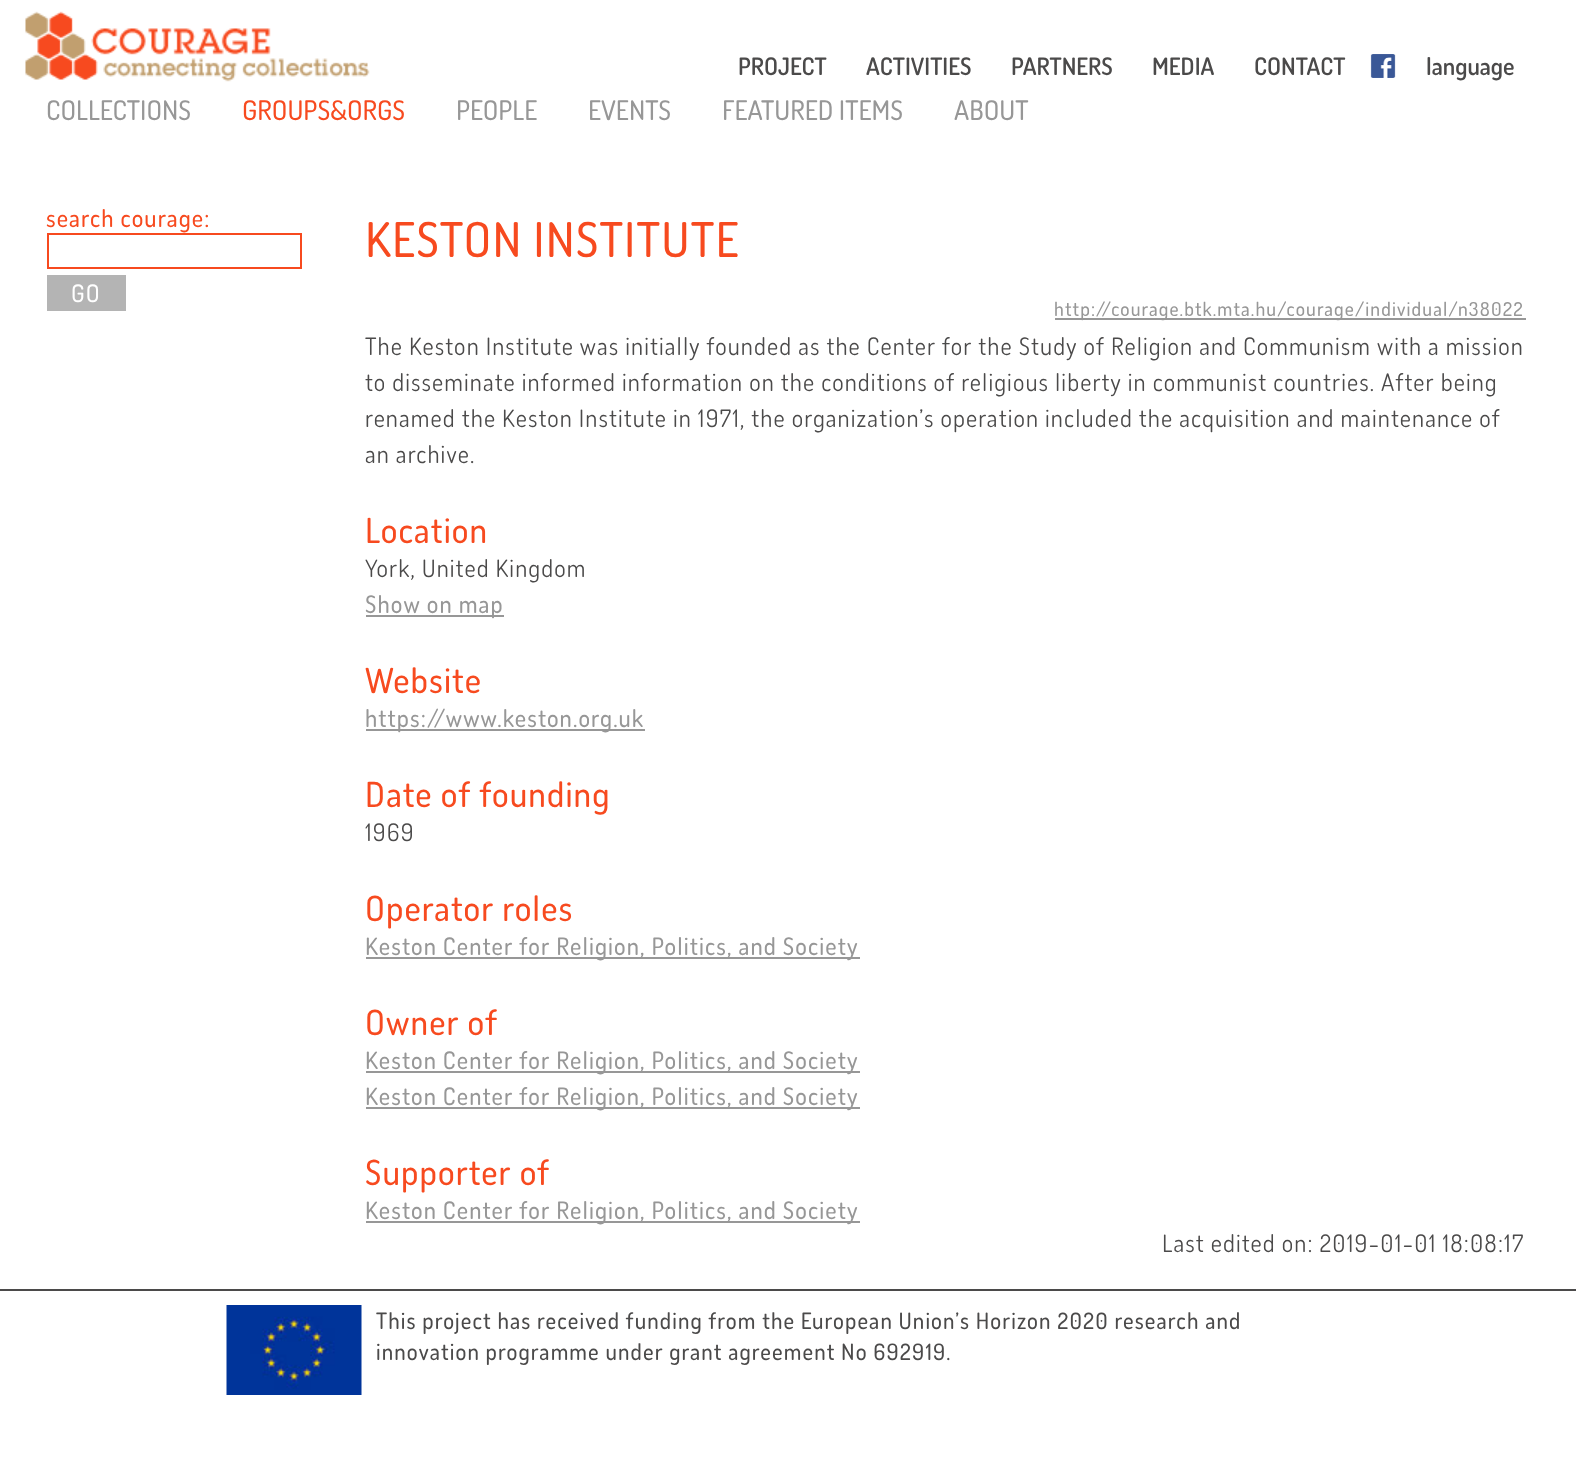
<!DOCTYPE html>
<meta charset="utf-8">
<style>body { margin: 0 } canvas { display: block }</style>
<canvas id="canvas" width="1576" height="1475"></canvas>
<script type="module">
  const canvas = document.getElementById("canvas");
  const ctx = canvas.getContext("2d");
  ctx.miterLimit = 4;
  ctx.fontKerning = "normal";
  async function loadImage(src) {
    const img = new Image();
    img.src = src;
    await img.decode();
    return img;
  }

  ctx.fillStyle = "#ffffff";
  ctx.fillRect(0, 0, 1576, 1475);
  ctx.drawImage(await loadImage("img1.png"), 25, 11, 345, 71);
  ctx.font = "600 24px 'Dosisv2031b'";
  ctx.fillStyle = "#4b4a4a";
  ctx.fillText("PROJECT", 738, 75);
  ctx.fillText("ACTIVITIES", 866, 75);
  ctx.fillText("PARTNERS", 1011, 75);
  ctx.fillText("MEDIA", 1152, 75);
  ctx.fillText("CONTACT", 1254, 75);
  ctx.drawImage(await loadImage("img2.png"), 1370, 54, 26, 24);
  ctx.fillText("language", 1426, 75);
  ctx.font = "500 27px 'Dosisv2031b'";
  ctx.fillStyle = "#979797";
  ctx.fillText("COLLECTIONS", 46, 120);
  ctx.fillStyle = "#f74a1f";
  ctx.fillText("GROUPS&ORGS", 242, 120);
  ctx.fillStyle = "#979797";
  ctx.fillText("PEOPLE", 456, 120);
  ctx.fillText("EVENTS", 588, 120);
  ctx.fillText("FEATURED ITEMS", 722, 120);
  ctx.fillText("ABOUT", 954, 120);
  ctx.letterSpacing = "1.12px";
  ctx.font = "500 24px 'Dosisv2031b'";
  ctx.fillStyle = "#f74a1f";
  ctx.fillText("search courage:", 46, 227);
  ctx.strokeStyle = "#f74a1f";
  ctx.lineWidth = 2;
  ctx.strokeRect(48, 234, 253, 34);
  ctx.fillStyle = "#b4b4b4";
  ctx.fillRect(47, 275, 79, 36);
  ctx.fillStyle = "#ffffff";
  ctx.fillText("GO", 71, 302);
  ctx.font = "500 48px 'Dosisv2031b'";
  ctx.fillStyle = "#f74a1f";
  ctx.fillText("KESTON INSTITUTE", 365, 257);
  ctx.fillStyle = "#979797";
  ctx.fillRect(1055, 318, 471, 2);
  ctx.font = "500 19.2px 'Dosisv2031b'";
  ctx.fillText("http://courage.btk.mta.hu/courage/individual/n38022", 1054, 316);
  ctx.font = "24px 'Dosisv2031b'";
  ctx.fillStyle = "#4b4a4a";
  ctx.fillText("The Keston Institute was initially founded as the Center for the Study of Religion and Communism with a mission", 365, 355);
  ctx.fillText("to disseminate informed information on the conditions of religious liberty in communist countries. After being", 365, 391);
  ctx.fillText("renamed the Keston Institute in 1971, the organization’s operation included the acquisition and maintenance of", 365, 427);
  ctx.fillText("an archive.", 365, 463);
  ctx.font = "500 34.5px 'Dosisv2031b'";
  ctx.fillStyle = "#f74a1f";
  ctx.fillText("Location", 365, 543);
  ctx.font = "24px 'Dosisv2031b'";
  ctx.fillStyle = "#4b4a4a";
  ctx.fillText("York, United Kingdom", 365, 577);
  ctx.fillStyle = "#979797";
  ctx.fillRect(366, 615, 138, 2);
  ctx.font = "500 24px 'Dosisv2031b'";
  ctx.fillText("Show on map", 365, 613);
  ctx.font = "500 34.5px 'Dosisv2031b'";
  ctx.fillStyle = "#f74a1f";
  ctx.fillText("Website", 365, 693);
  ctx.fillStyle = "#979797";
  ctx.fillRect(366, 729, 279, 2);
  ctx.font = "500 24px 'Dosisv2031b'";
  ctx.fillText("https://www.keston.org.uk", 365, 727);
  ctx.font = "500 34.5px 'Dosisv2031b'";
  ctx.fillStyle = "#f74a1f";
  ctx.fillText("Date of founding", 365, 807);
  ctx.font = "24px 'Dosisv2031b'";
  ctx.fillStyle = "#4b4a4a";
  ctx.fillText("1969", 365, 841);
  ctx.font = "500 34.5px 'Dosisv2031b'";
  ctx.fillStyle = "#f74a1f";
  ctx.fillText("Operator roles", 365, 921);
  ctx.fillStyle = "#979797";
  ctx.fillRect(366, 957, 494, 2);
  ctx.font = "500 24px 'Dosisv2031b'";
  ctx.fillText("Keston Center for Religion, Politics, and Society", 365, 955);
  ctx.font = "500 34.5px 'Dosisv2031b'";
  ctx.fillStyle = "#f74a1f";
  ctx.fillText("Owner of", 365, 1035);
  ctx.fillStyle = "#979797";
  ctx.fillRect(366, 1071, 494, 2);
  ctx.font = "500 24px 'Dosisv2031b'";
  ctx.fillText("Keston Center for Religion, Politics, and Society", 365, 1069);
  ctx.fillRect(366, 1107, 494, 2);
  ctx.fillText("Keston Center for Religion, Politics, and Society", 365, 1105);
  ctx.font = "500 34.5px 'Dosisv2031b'";
  ctx.fillStyle = "#f74a1f";
  ctx.fillText("Supporter of", 365, 1185);
  ctx.fillStyle = "#979797";
  ctx.fillRect(366, 1221, 494, 2);
  ctx.font = "500 24px 'Dosisv2031b'";
  ctx.fillText("Keston Center for Religion, Politics, and Society", 365, 1219);
  ctx.font = "24px 'Dosisv2031b'";
  ctx.fillStyle = "#4b4a4a";
  ctx.fillText("Last edited on: 2019-01-01 18:08:17", 1162, 1252);
  ctx.fillRect(0, 1289, 1576, 2);
  ctx.drawImage(await loadImage("img3.png"), 226, 1305, 136, 90);
  ctx.font = "500 22.5px 'Dosisv2031b'";
  ctx.fillText("This project has received funding from the European Union’s Horizon 2020 research and", 376, 1329);
  ctx.fillText("innovation programme under grant agreement No 692919.", 376, 1360);
</script>
